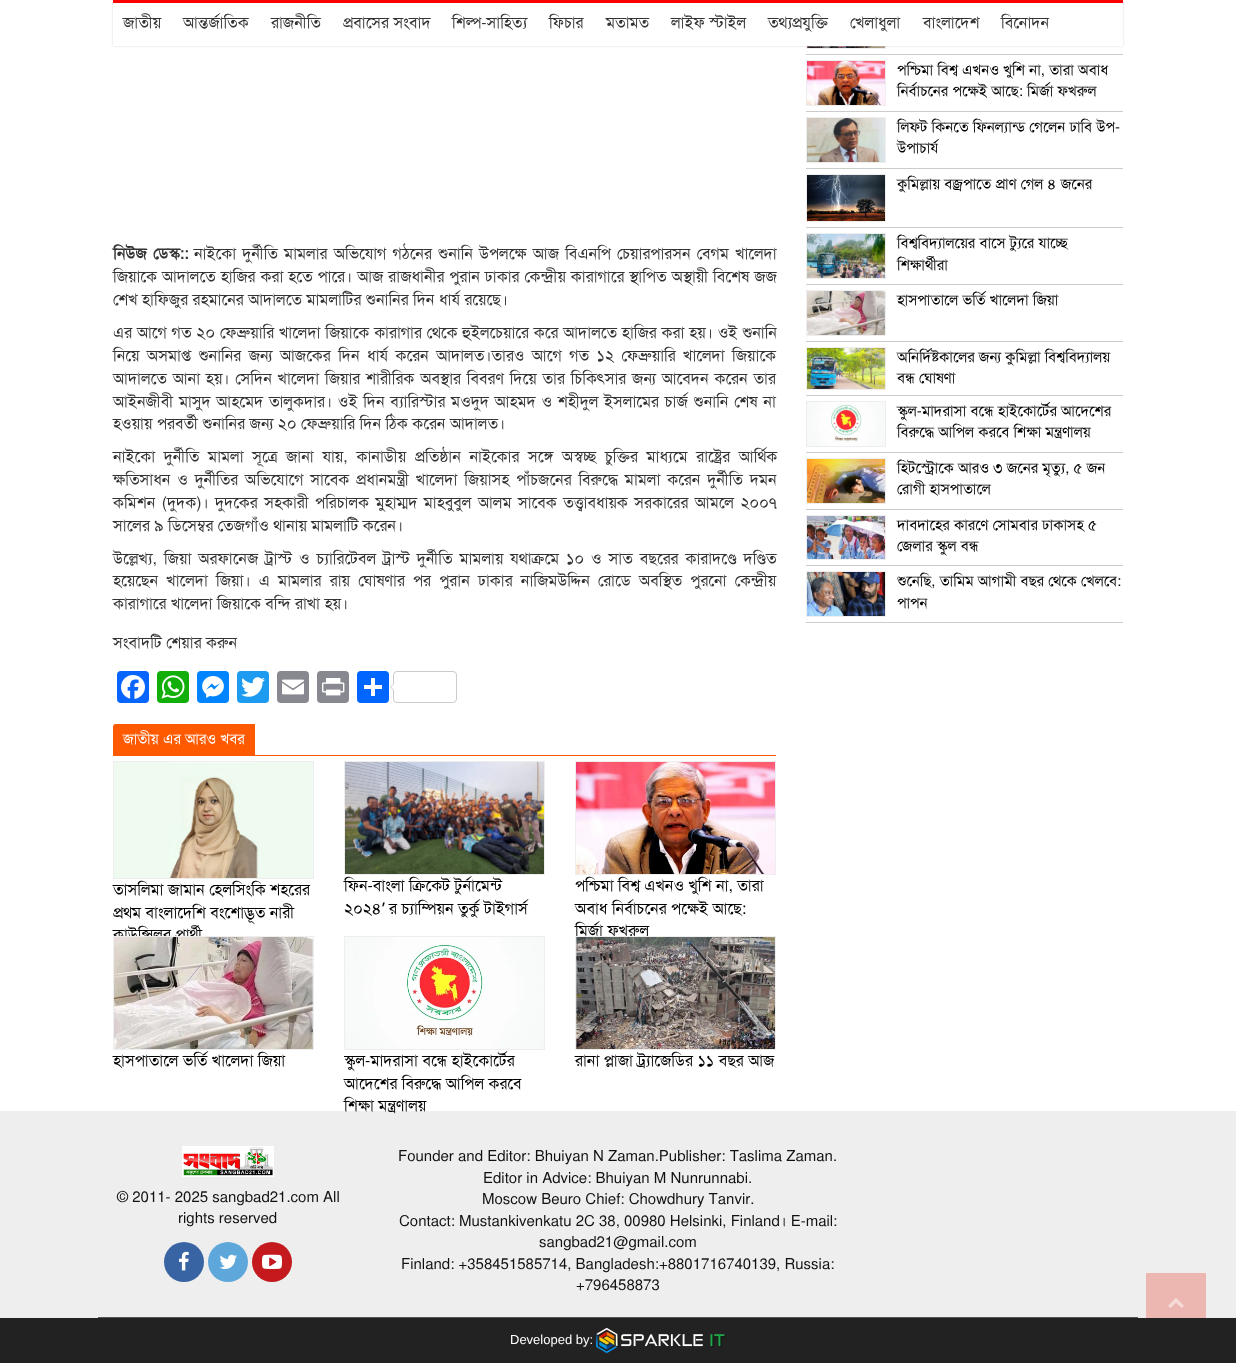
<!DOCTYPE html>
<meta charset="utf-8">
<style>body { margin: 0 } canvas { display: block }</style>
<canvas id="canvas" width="1236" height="1363"></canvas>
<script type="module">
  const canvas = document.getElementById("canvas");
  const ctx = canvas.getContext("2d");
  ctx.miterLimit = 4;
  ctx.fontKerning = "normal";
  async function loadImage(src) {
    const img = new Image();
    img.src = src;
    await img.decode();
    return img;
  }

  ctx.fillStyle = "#ffffff";
  ctx.fillRect(0, 0, 1236, 1363);
  ctx.strokeStyle = "#eeeeee";
  ctx.strokeRect(806.5, -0.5, 79, 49);
  ctx.drawImage(await loadImage("img13.png"), 807, 46, 78, 2);
  ctx.fillStyle = "#d6d4d4";
  ctx.filter = "blur(1px)";
  ctx.beginPath();
  ctx.rect(113, 0, 1010, 46);
  ctx.fill();
  ctx.filter = "none";
  ctx.fillStyle = "#ffffff";
  ctx.fillRect(113, 3, 1010, 43);
  ctx.fillStyle = "#ff0000";
  ctx.fillRect(113, 0, 1010, 3);
  ctx.font = "16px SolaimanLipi";
  ctx.fillStyle = "#333333";
  ctx.fillText("জাতীয়", 123, 28);
  ctx.fillText("আন্তর্জাতিক", 183, 28);
  ctx.fillText("রাজনীতি", 271, 28);
  ctx.fillText("প্রবাসের সংবাদ", 343, 28);
  ctx.fillText("শিল্প-সাহিত্য", 452, 28);
  ctx.fillText("ফিচার", 549, 28);
  ctx.fillText("মতামত", 606, 28);
  ctx.fillText("লাইফ স্টাইল", 671, 28);
  ctx.fillText("তথ্যপ্রযুক্তি", 768, 28);
  ctx.fillText("খেলাধুলা", 850, 28);
  ctx.fillText("বাংলাদেশ", 923, 28);
  ctx.fillText("বিনোদন", 1001, 28);
  ctx.wordSpacing = "2px";
  ctx.font = "bold 16px SolaimanLipi";
  ctx.fillText("নিউজ ডেস্ক::", 113, 259);
  ctx.wordSpacing = "1.75px";
  ctx.font = "16px SolaimanLipi";
  ctx.fillText("নাইকো দুর্নীতি মামলার অভিযোগ গঠনের শুনানি উপলক্ষে আজ বিএনপি চেয়ারপারসন বেগম খালেদা", 194, 259);
  ctx.wordSpacing = "0.5px";
  ctx.fillText("জিয়াকে আদালতে হাজির করা হতে পারে। আজ রাজধানীর পুরান ঢাকার কেন্দ্রীয় কারাগারে স্থাপিত অস্থায়ী বিশেষ জজ", 113, 282);
  ctx.wordSpacing = "0px";
  ctx.fillText("শেখ হাফিজুর রহমানের আদালতে মামলাটির শুনানির দিন ধার্য রয়েছে।", 113, 305);
  ctx.wordSpacing = "0.4px";
  ctx.fillText("এর আগে গত ২০ ফেব্রুয়ারি খালেদা জিয়াকে কারাগার থেকে হুইলচেয়ারে করে আদালতে হাজির করা হয়। ওই শুনানি", 113, 338);
  ctx.wordSpacing = "3px";
  ctx.fillText("নিয়ে অসমাপ্ত শুনানির জন্য আজকের দিন ধার্য করেন আদালত।তারও আগে গত ১২ ফেব্রুয়ারি খালেদা জিয়াকে", 113, 361);
  ctx.wordSpacing = "1.4px";
  ctx.fillText("আদালতে আনা হয়। সেদিন খালেদা জিয়ার শারীরিক অবস্থার বিবরণ দিয়ে তার চিকিৎসার জন্য আবেদন করেন তার", 113, 384);
  ctx.wordSpacing = "1.3px";
  ctx.fillText("আইনজীবী মাসুদ আহমেদ তালুকদার। ওই দিন ব্যারিস্টার মওদুদ আহমদ ও শহীদুল ইসলামের চার্জ শুনানি শেষ না", 113, 407);
  ctx.wordSpacing = "0px";
  ctx.fillText("হওয়ায় পরবর্তী শুনানির জন্য ২০ ফেব্রুয়ারি দিন ঠিক করেন আদালত।", 113, 429);
  ctx.wordSpacing = "4.25px";
  ctx.fillText("নাইকো দুর্নীতি মামলা সূত্রে জানা যায়, কানাডীয় প্রতিষ্ঠান নাইকোর সঙ্গে অস্বচ্ছ চুক্তির মাধ্যমে রাষ্ট্রের আর্থিক", 113, 462);
  ctx.wordSpacing = "2.4px";
  ctx.fillText("ক্ষতিসাধন ও দুর্নীতির অভিযোগে সাবেক প্রধানমন্ত্রী খালেদা জিয়াসহ পাঁচজনের বিরুদ্ধে মামলা করেন দুর্নীতি দমন", 113, 485);
  ctx.wordSpacing = "2px";
  ctx.fillText("কমিশন (দুদক)। দুদকের সহকারী পরিচালক মুহাম্মদ মাহবুবুল আলম সাবেক তত্ত্বাবধায়ক সরকারের আমলে ২০০৭", 113, 508);
  ctx.wordSpacing = "0px";
  ctx.fillText("সালের ৯ ডিসেম্বর তেজগাঁও থানায় মামলাটি করেন।", 113, 531);
  ctx.wordSpacing = "2.5px";
  ctx.fillText("উল্লেখ্য, জিয়া অরফানেজ ট্রাস্ট ও চ্যারিটেবল ট্রাস্ট দুর্নীতি মামলায় যথাক্রমে ১০ ও সাত বছরের কারাদণ্ডে দণ্ডিত", 113, 564);
  ctx.wordSpacing = "3.75px";
  ctx.fillText("হয়েছেন খালেদা জিয়া। এ মামলার রায় ঘোষণার পর পুরান ঢাকার নাজিমউদ্দিন রোডে অবস্থিত পুরনো কেন্দ্রীয়", 113, 586);
  ctx.wordSpacing = "0px";
  ctx.fillText("কারাগারে খালেদা জিয়াকে বন্দি রাখা হয়।", 113, 609);
  ctx.fillText("সংবাদটি শেয়ার করুন", 113, 648);
  ctx.fillStyle = "#0866ff";
  ctx.beginPath();
  ctx.roundRect(117, 671, 32, 32, 4);
  ctx.fill();
  ctx.drawImage(await loadImage("img1.png"), 121, 675, 24, 24);
  ctx.fillStyle = "#12af0a";
  ctx.beginPath();
  ctx.roundRect(157, 671, 32, 32, 4);
  ctx.fill();
  ctx.drawImage(await loadImage("img2.png"), 161, 675, 24, 24);
  ctx.fillStyle = "#0084ff";
  ctx.beginPath();
  ctx.roundRect(197, 671, 32, 32, 4);
  ctx.fill();
  ctx.drawImage(await loadImage("img3.png"), 202, 676, 22, 22);
  ctx.fillStyle = "#1d9bf0";
  ctx.beginPath();
  ctx.roundRect(237, 671, 32, 32, 4);
  ctx.fill();
  ctx.drawImage(await loadImage("img4.png"), 241, 677, 24, 20);
  ctx.fillStyle = "#888990";
  ctx.beginPath();
  ctx.roundRect(277, 671, 32, 32, 4);
  ctx.fill();
  ctx.drawImage(await loadImage("img5.png"), 282, 679, 22, 16);
  ctx.beginPath();
  ctx.roundRect(317, 671, 32, 32, 4);
  ctx.fill();
  ctx.drawImage(await loadImage("img6.png"), 322, 678, 23, 18);
  ctx.fillStyle = "#0166ff";
  ctx.beginPath();
  ctx.roundRect(357, 671, 32, 32, 4);
  ctx.fill();
  ctx.fillStyle = "#ffffff";
  ctx.fillRect(371, 678, 4, 18);
  ctx.fillRect(364, 685, 18, 4);
  ctx.beginPath();
  ctx.roundRect(393.5, 671.5, 63, 31, 3.5);
  ctx.strokeStyle = "#cccccc";
  ctx.stroke();
  ctx.fillStyle = "#cccccc";
  ctx.beginPath();
  ctx.moveTo(394, 683);
  ctx.lineTo(394, 691);
  ctx.lineTo(390, 687);
  ctx.closePath();
  ctx.fill();
  ctx.fillStyle = "#ffffff";
  ctx.beginPath();
  ctx.moveTo(395, 683);
  ctx.lineTo(395, 691);
  ctx.lineTo(391, 687);
  ctx.closePath();
  ctx.fill();
  ctx.fillStyle = "#ff5a00";
  ctx.fillRect(113, 755, 663, 1);
  ctx.beginPath();
  ctx.roundRect(113, 724, 142, 31, [3, 0, 0, 0]);
  ctx.fill();
  ctx.font = "15px SolaimanLipi";
  ctx.fillStyle = "#ffffff";
  ctx.fillText("জাতীয় এর আরও খবর", 123, 744);
  ctx.strokeStyle = "#eeeeee";
  ctx.strokeRect(113.5, 761.5, 200, 117);
  ctx.drawImage(await loadImage("img7.png"), 114, 762, 199, 116);
  ctx.font = "16px SolaimanLipi";
  ctx.fillStyle = "#000000";
  ctx.fillText("তাসলিমা জামান হেলসিংকি শহরের", 113, 895);
  ctx.fillText("প্রথম বাংলাদেশি বংশোদ্ভূত নারী", 113, 918);
  ctx.fillText("কাউন্সিলর প্রার্থী", 113, 940);
  ctx.strokeRect(344.5, 761.5, 200, 113);
  ctx.drawImage(await loadImage("img8.png"), 345, 762, 199, 112);
  ctx.fillText("ফিন-বাংলা ক্রিকেট টুর্নামেন্ট", 344, 891);
  ctx.fillText("২০২৪", 344, 914);
  ctx.font = "500 16px Open Sans";
  ctx.fillText("’", 382, 914);
  ctx.font = "16px SolaimanLipi";
  ctx.fillText("র চ্যাম্পিয়ন তুর্কু টাইগার্স", 389, 914);
  ctx.strokeRect(575.5, 761.5, 200, 113);
  ctx.drawImage(await loadImage("img9.png"), 576, 762, 199, 112);
  ctx.fillText("পশ্চিমা বিশ্ব এখনও খুশি না, তারা", 575, 891);
  ctx.fillText("অবাধ নির্বাচনের পক্ষেই আছে:", 575, 914);
  ctx.fillText("মির্জা ফখরুল", 575, 936);
  ctx.strokeRect(113.5, 936.5, 200, 113);
  ctx.drawImage(await loadImage("img10.png"), 114, 937, 199, 112);
  ctx.fillText("হাসপাতালে ভর্তি খালেদা জিয়া", 113, 1066);
  ctx.strokeRect(344.5, 936.5, 200, 113);
  ctx.drawImage(await loadImage("img11.png"), 345, 937, 199, 112);
  ctx.save();
  ctx.beginPath();
  ctx.rect(344, 1050, 201, 73);
  ctx.clip();
  ctx.fillText("স্কুল-মাদরাসা বন্ধে হাইকোর্টের", 344, 1066);
  ctx.restore();
  ctx.fillText("আদেশের বিরুদ্ধে আপিল করবে", 344, 1089);
  ctx.fillStyle = "#eeeeee";
  ctx.fillRect(0, 1111, 1236, 207);
  ctx.fillStyle = "#000000";
  ctx.fillText("শিক্ষা মন্ত্রণালয়", 344, 1111);
  ctx.strokeRect(575.5, 936.5, 200, 113);
  ctx.drawImage(await loadImage("img12.png"), 576, 937, 199, 112);
  ctx.fillText("রানা প্লাজা ট্র্যাজেডির ১১ বছর আজ", 575, 1066);
  ctx.fillStyle = "#cccccc";
  ctx.fillRect(806, 54, 317, 1);
  ctx.fillRect(806, 111, 317, 1);
  ctx.strokeRect(806.5, 60.5, 79, 45);
  ctx.drawImage(await loadImage("img14.png"), 807, 61, 78, 44);
  ctx.font = "15px SolaimanLipi";
  ctx.fillStyle = "#000000";
  ctx.fillText("পশ্চিমা বিশ্ব এখনও খুশি না, তারা অবাধ", 897, 75);
  ctx.fillText("নির্বাচনের পক্ষেই আছে: মির্জা ফখরুল", 897, 96);
  ctx.fillStyle = "#cccccc";
  ctx.fillRect(806, 168, 317, 1);
  ctx.strokeRect(806.5, 117.5, 79, 45);
  ctx.drawImage(await loadImage("img15.png"), 807, 118, 78, 44);
  ctx.fillStyle = "#000000";
  ctx.fillText("লিফট কিনতে ফিনল্যান্ড গেলেন ঢাবি উপ-", 897, 132);
  ctx.fillText("উপাচার্য", 897, 153);
  ctx.fillStyle = "#cccccc";
  ctx.fillRect(806, 227, 317, 1);
  ctx.strokeRect(806.5, 174.5, 79, 47);
  ctx.drawImage(await loadImage("img16.png"), 807, 175, 78, 46);
  ctx.fillStyle = "#000000";
  ctx.fillText("কুমিল্লায় বজ্রপাতে প্রাণ গেল ৪ জনের", 897, 189);
  ctx.fillStyle = "#cccccc";
  ctx.fillRect(806, 284, 317, 1);
  ctx.strokeRect(806.5, 233.5, 79, 45);
  ctx.drawImage(await loadImage("img17.png"), 807, 234, 78, 44);
  ctx.fillStyle = "#000000";
  ctx.fillText("বিশ্ববিদ্যালয়ের বাসে ট্যুরে যাচ্ছে", 897, 248);
  ctx.fillText("শিক্ষার্থীরা", 897, 270);
  ctx.fillStyle = "#cccccc";
  ctx.fillRect(806, 341, 317, 1);
  ctx.strokeRect(806.5, 290.5, 79, 45);
  ctx.drawImage(await loadImage("img18.png"), 807, 291, 78, 44);
  ctx.fillStyle = "#000000";
  ctx.fillText("হাসপাতালে ভর্তি খালেদা জিয়া", 897, 305);
  ctx.fillStyle = "#cccccc";
  ctx.fillRect(806, 395, 317, 1);
  ctx.strokeRect(806.5, 347.5, 79, 42);
  ctx.drawImage(await loadImage("img19.png"), 807, 348, 78, 41);
  ctx.fillStyle = "#000000";
  ctx.fillText("অনির্দিষ্টকালের জন্য কুমিল্লা বিশ্ববিদ্যালয়", 897, 362);
  ctx.fillText("বন্ধ ঘোষণা", 897, 383);
  ctx.fillStyle = "#cccccc";
  ctx.fillRect(806, 452, 317, 1);
  ctx.strokeRect(806.5, 401.5, 79, 45);
  ctx.drawImage(await loadImage("img20.png"), 807, 402, 78, 44);
  ctx.fillStyle = "#000000";
  ctx.fillText("স্কুল-মাদরাসা বন্ধে হাইকোর্টের আদেশের", 897, 416);
  ctx.fillText("বিরুদ্ধে আপিল করবে শিক্ষা মন্ত্রণালয়", 897, 437);
  ctx.fillStyle = "#cccccc";
  ctx.fillRect(806, 509, 317, 1);
  ctx.strokeRect(806.5, 458.5, 79, 45);
  ctx.drawImage(await loadImage("img21.png"), 807, 459, 78, 44);
  ctx.fillStyle = "#000000";
  ctx.fillText("হিটস্ট্রোকে আরও ৩ জনের মৃত্যু, ৫ জন", 897, 473);
  ctx.fillText("রোগী হাসপাতালে", 897, 494);
  ctx.fillStyle = "#cccccc";
  ctx.fillRect(806, 565, 317, 1);
  ctx.strokeRect(806.5, 515.5, 79, 44);
  ctx.drawImage(await loadImage("img22.png"), 807, 516, 78, 43);
  ctx.fillStyle = "#000000";
  ctx.fillText("দাবদাহের কারণে সোমবার ঢাকাসহ ৫", 897, 530);
  ctx.fillText("জেলার স্কুল বন্ধ", 897, 551);
  ctx.fillStyle = "#cccccc";
  ctx.fillRect(806, 622, 317, 1);
  ctx.strokeRect(806.5, 571.5, 79, 45);
  ctx.drawImage(await loadImage("img23.png"), 807, 572, 78, 44);
  ctx.fillStyle = "#000000";
  ctx.fillText("শুনেছি, তামিম আগামী বছর থেকে খেলবে:", 897, 586);
  ctx.fillText("পাপন", 897, 608);
  ctx.fillStyle = "#ecb6b1";
  ctx.fillRect(1146, 1273, 60, 45);
  ctx.fillStyle = "#555555";
  ctx.fillRect(98, 1317, 1040, 1);
  ctx.drawImage(await loadImage("img24.png"), 182, 1146, 92, 31);
  ctx.fillStyle = "#111111";
  ctx.fillText("© 2011- 2025 sangbad21.com All", 117, 1202);
  ctx.fillText("rights reserved", 178, 1223);
  ctx.fillStyle = "#3864a3";
  ctx.beginPath();
  ctx.arc(184, 1262, 20, 0, Math.PI * 2);
  ctx.fill();
  ctx.drawImage(await loadImage("img25.png"), 179, 1251, 10, 20);
  ctx.fillStyle = "#5da7da";
  ctx.beginPath();
  ctx.arc(228, 1262, 20, 0, Math.PI * 2);
  ctx.fill();
  ctx.drawImage(await loadImage("img26.png"), 219, 1254, 18, 15);
  ctx.fillStyle = "#c41a1e";
  ctx.beginPath();
  ctx.arc(272, 1262, 20, 0, Math.PI * 2);
  ctx.fill();
  ctx.drawImage(await loadImage("img27.png"), 262, 1254, 20, 15);
  ctx.fillStyle = "#111111";
  ctx.fillText("Founder and Editor: Bhuiyan N Zaman.Publisher: Taslima Zaman.", 398, 1161);
  ctx.fillText("Editor in Advice: Bhuiyan M Nunrunnabi.", 483, 1183);
  ctx.fillText("Moscow Beuro Chief: Chowdhury Tanvir.", 482, 1204);
  ctx.fillText("Contact: Mustankivenkatu 2C 38, 00980 Helsinki, Finland। E-mail:", 399, 1226);
  ctx.fillText("sangbad21@gmail.com", 539, 1247);
  ctx.fillText("Finland: +358451585714, Bangladesh:+8801716740139, Russia:", 401, 1269);
  ctx.fillText("+796458873", 576, 1290);
  ctx.drawImage(await loadImage("img28.png"), 1168, 1298, 16, 10);
  ctx.fillStyle = "#222222";
  ctx.fillRect(0, 1318, 1236, 45);
  ctx.font = "13px Liberation Sans";
  ctx.fillStyle = "#ffffff";
  ctx.fillText("Developed by:", 510, 1344);
  ctx.drawImage(await loadImage("img29.png"), 596, 1328, 130, 25);
</script>
